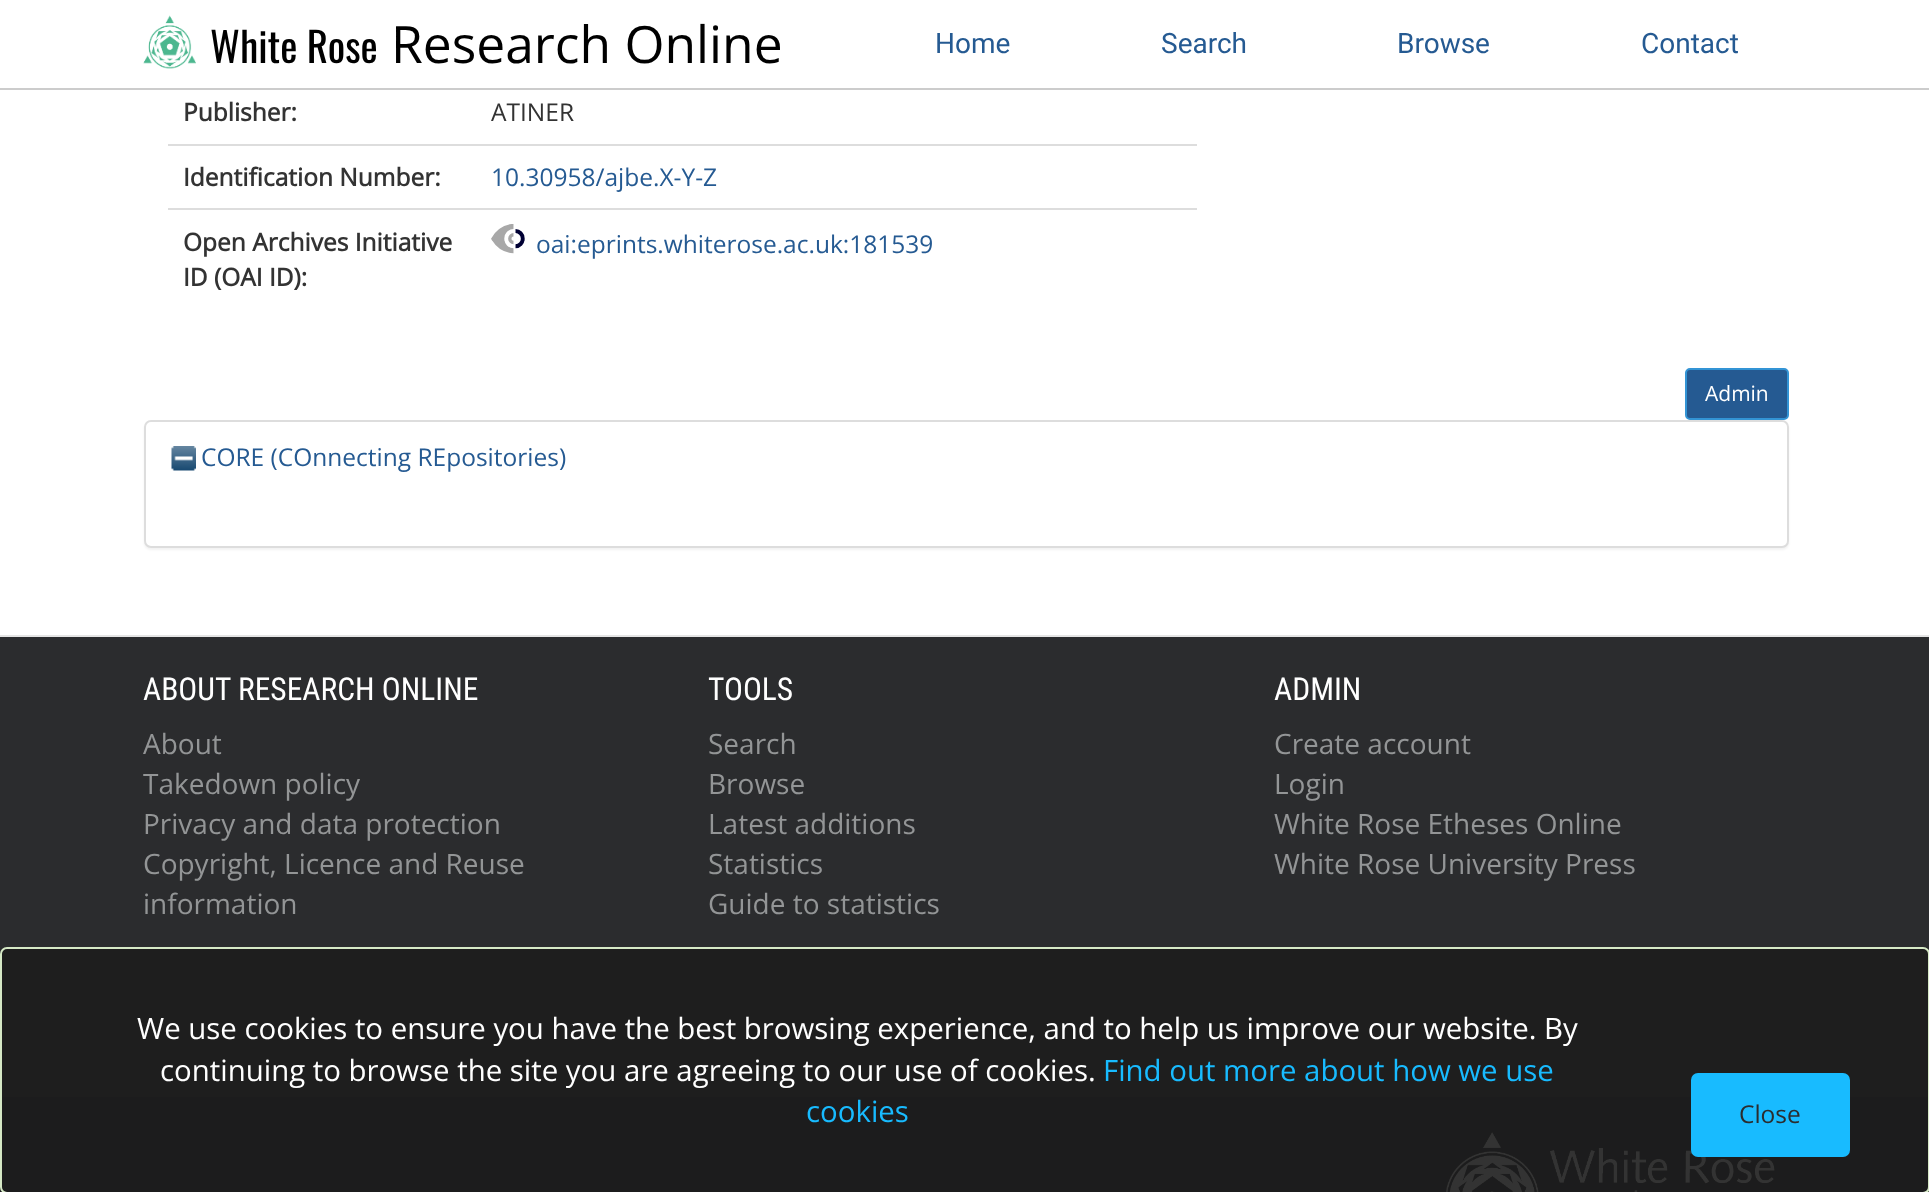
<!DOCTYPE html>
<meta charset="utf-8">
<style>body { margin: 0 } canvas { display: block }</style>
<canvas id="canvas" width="1929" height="1192"></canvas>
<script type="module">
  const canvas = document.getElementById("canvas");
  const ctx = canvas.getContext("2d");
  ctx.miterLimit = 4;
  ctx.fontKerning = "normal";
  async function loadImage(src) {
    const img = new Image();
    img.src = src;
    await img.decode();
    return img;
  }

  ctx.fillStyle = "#ffffff";
  ctx.fillRect(0, 0, 1929, 1192);
  ctx.fillStyle = "#cccccc";
  ctx.fillRect(0, 88, 1929, 2);
  ctx.drawImage(await loadImage("img1.png"), 143, 15, 53, 54);
  ctx.font = "41px Oswald";
  ctx.fillStyle = "#000000";
  ctx.fillText("White Rose", 210, 63);
  ctx.font = "51.5px Open Sans";
  ctx.fillText("Research Online", 391, 63);
  ctx.font = "28px Roboto";
  ctx.fillStyle = "#255a92";
  ctx.fillText("Home", 935, 53);
  ctx.fillText("Search", 1161, 53);
  ctx.fillText("Browse", 1397, 53);
  ctx.fillText("Contact", 1641, 53);
  ctx.font = "bold 24.5px Open Sans";
  ctx.fillStyle = "#333333";
  ctx.fillText("Publisher:", 183, 121);
  ctx.font = "24.5px Open Sans";
  ctx.fillText("ATINER", 491, 121);
  ctx.font = "bold 24.5px Open Sans";
  ctx.fillText("Identification Number:", 183, 186);
  ctx.fillStyle = "#dddddd";
  ctx.fillRect(168, 144, 1029, 2);
  ctx.font = "24.5px Open Sans";
  ctx.fillStyle = "#255a92";
  ctx.fillText("10.30958/ajbe.X-Y-Z", 491, 186);
  ctx.font = "bold 24.5px Open Sans";
  ctx.fillStyle = "#333333";
  ctx.fillText("Open Archives Initiative", 183, 251);
  ctx.fillText("ID (OAI ID):", 183, 286);
  ctx.fillStyle = "#dddddd";
  ctx.fillRect(168, 208, 1029, 2);
  ctx.drawImage(await loadImage("img2.png"), 491, 224, 34, 30);
  ctx.font = "24.5px Open Sans";
  ctx.fillStyle = "#255a92";
  ctx.fillText("oai:eprints.whiterose.ac.uk:181539", 536, 253);
  ctx.fillStyle = "rgba(0, 0, 0, 0.05)";
  ctx.filter = "blur(1px)";
  ctx.beginPath();
  ctx.roundRect(144, 422, 1645, 128, 7);
  ctx.fill();
  ctx.filter = "none";
  ctx.fillStyle = "#255a92";
  ctx.beginPath();
  ctx.roundRect(1686, 369, 102, 50, 4);
  ctx.fill();
  ctx.strokeStyle = "#3394d5";
  ctx.lineWidth = 2;
  ctx.stroke();
  ctx.font = "21px Open Sans";
  ctx.fillStyle = "#ffffff";
  ctx.fillText("Admin", 1705, 401);
  ctx.beginPath();
  ctx.roundRect(145, 421, 1643, 126, 6);
  ctx.fill();
  ctx.strokeStyle = "#dddddd";
  ctx.stroke();
  ctx.drawImage(await loadImage("img3.png"), 171, 446, 25, 25);
  ctx.font = "24.5px Open Sans";
  ctx.fillStyle = "#255a92";
  ctx.fillText("CORE (COnnecting REpositories)", 201, 466);
  ctx.fillStyle = "#e5e5e5";
  ctx.fillRect(0, 635, 1929, 2);
  ctx.fillStyle = "#2b2c2e";
  ctx.fillRect(0, 637, 1929, 460);
  ctx.font = "31.5px Roboto Condensed";
  ctx.fillStyle = "#ffffff";
  ctx.fillText("ABOUT RESEARCH ONLINE", 143, 700);
  ctx.font = "28px Open Sans";
  ctx.fillStyle = "#939596";
  ctx.fillText("About", 143, 754);
  ctx.fillText("Takedown policy", 143, 794);
  ctx.fillText("Privacy and data protection", 143, 834);
  ctx.fillText("Copyright, Licence and Reuse", 143, 874);
  ctx.fillText("information", 143, 914);
  ctx.font = "31.5px Roboto Condensed";
  ctx.fillStyle = "#ffffff";
  ctx.fillText("TOOLS", 708, 700);
  ctx.font = "28px Open Sans";
  ctx.fillStyle = "#939596";
  ctx.fillText("Search", 708, 754);
  ctx.fillText("Browse", 708, 794);
  ctx.fillText("Latest additions", 708, 834);
  ctx.fillText("Statistics", 708, 874);
  ctx.fillText("Guide to statistics", 708, 914);
  ctx.font = "31.5px Roboto Condensed";
  ctx.fillStyle = "#ffffff";
  ctx.fillText("ADMIN", 1274, 700);
  ctx.font = "28px Open Sans";
  ctx.fillStyle = "#939596";
  ctx.fillText("Create account", 1274, 754);
  ctx.fillText("Login", 1274, 794);
  ctx.fillText("White Rose Etheses Online", 1274, 834);
  ctx.fillText("White Rose University Press", 1274, 874);
  ctx.fillStyle = "#1c1d1f";
  ctx.fillRect(0, 1097, 1929, 95);
  ctx.drawImage(await loadImage("img4.png"), 1446, 1132, 329, 60);
  ctx.fillStyle = "rgba(29, 29, 29, 0.9)";
  ctx.beginPath();
  ctx.roundRect(1, 948, 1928, 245, 6);
  ctx.fill();
  ctx.strokeStyle = "#d6e9c6";
  ctx.stroke();
  ctx.font = "29.4px Open Sans";
  ctx.fillStyle = "#ffffff";
  ctx.fillText("We use cookies to ensure you have the best browsing experience, and to help us improve our website. By", 137, 1039);
  ctx.fillText("continuing to browse the site you are agreeing to our use of cookies.", 160, 1081);
  ctx.fillStyle = "#18bbff";
  ctx.fillText("Find out more about how we use", 1103, 1081);
  ctx.fillText("cookies", 806, 1122);
  ctx.beginPath();
  ctx.roundRect(1691, 1073, 159, 84, 7);
  ctx.fill();
  ctx.font = "24.5px Open Sans";
  ctx.fillStyle = "#2b2c2e";
  ctx.fillText("Close", 1739, 1123);
</script>
